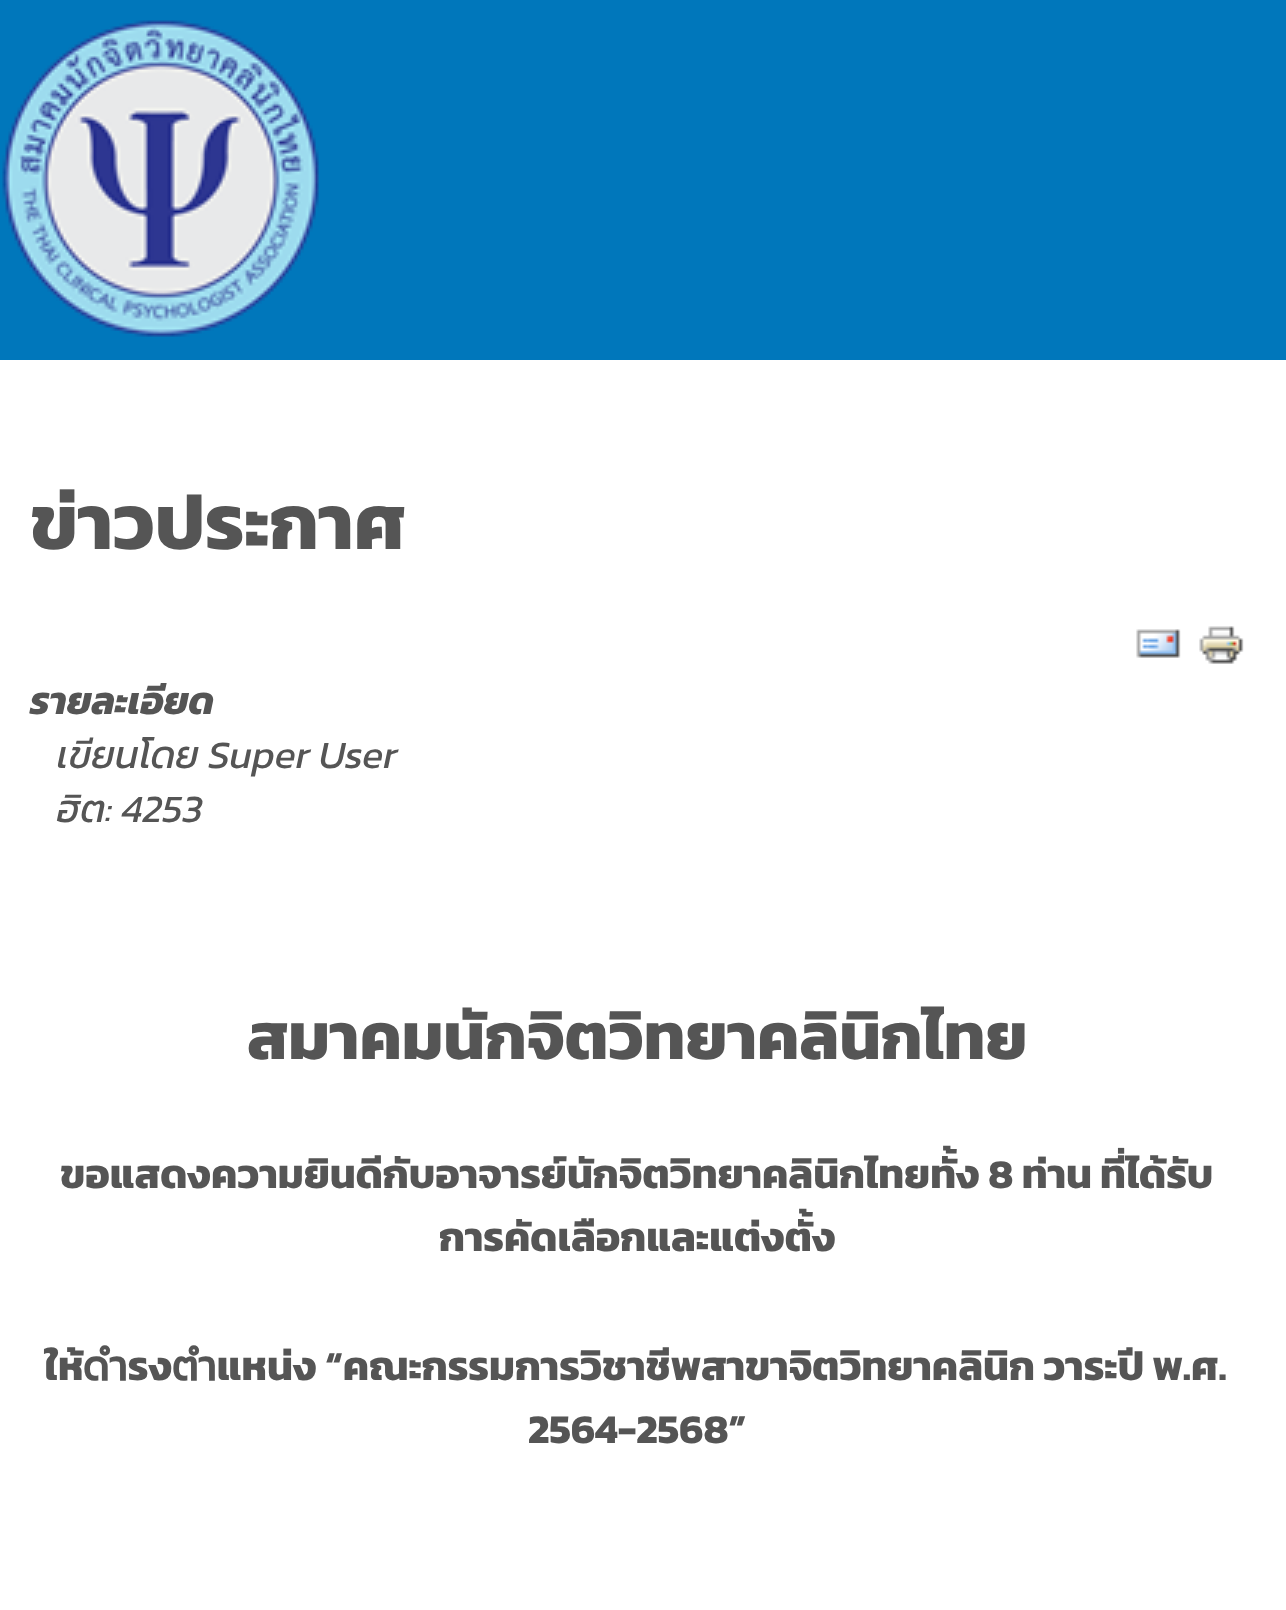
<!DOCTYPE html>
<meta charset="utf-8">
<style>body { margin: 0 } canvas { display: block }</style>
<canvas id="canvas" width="1286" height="1610"></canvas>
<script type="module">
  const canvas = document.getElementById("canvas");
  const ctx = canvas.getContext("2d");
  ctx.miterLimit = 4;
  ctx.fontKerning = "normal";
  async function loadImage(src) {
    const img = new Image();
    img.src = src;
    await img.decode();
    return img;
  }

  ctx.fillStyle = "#ffffff";
  ctx.fillRect(0, 0, 1286, 1610);
  ctx.fillStyle = "#0077bb";
  ctx.fillRect(0, 0, 1286, 360);
  ctx.drawImage(await loadImage("img1.png"), 2, 20, 317, 317);
  ctx.font = "bold 78px Kanit";
  ctx.fillStyle = "#555555";
  ctx.fillText("ข่าวประกาศ", 30, 549);
  ctx.drawImage(await loadImage("img2.png"), 1136, 629, 45, 29);
  ctx.drawImage(await loadImage("img3.png"), 1199, 626, 45, 38);
  ctx.font = "italic bold 39px Kanit";
  ctx.fillText("รายละเอียด", 30, 714);
  ctx.font = "italic 39px Kanit";
  ctx.fillText("เขียนโดย Super User", 57, 768);
  ctx.fillText("ฮิต: 4253", 57, 822);
  ctx.font = "bold 66px Kanit";
  ctx.fillText("สมาคมนักจิตวิทยาคลินิกไทย", 247, 1059);
  ctx.font = "bold 41.05px Kanit";
  ctx.fillText("ขอแสดงความยินดีกับอาจารย์นักจิตวิทยาคลินิกไทยทั้ง 8 ท่าน", 60, 1188);
  ctx.fillText("ที่ได้รับ", 1100, 1188);
  ctx.fillText("การคัดเลือกและแต่งตั้ง", 439, 1251);
  ctx.fillText("ให้ดำรงตำแหน่ง “คณะกรรมการวิชาชีพสาขาจิตวิทยาคลินิก วาระปี พ.ศ.", 45, 1380);
  ctx.fillText("2564-2568”", 528, 1443);
</script>
